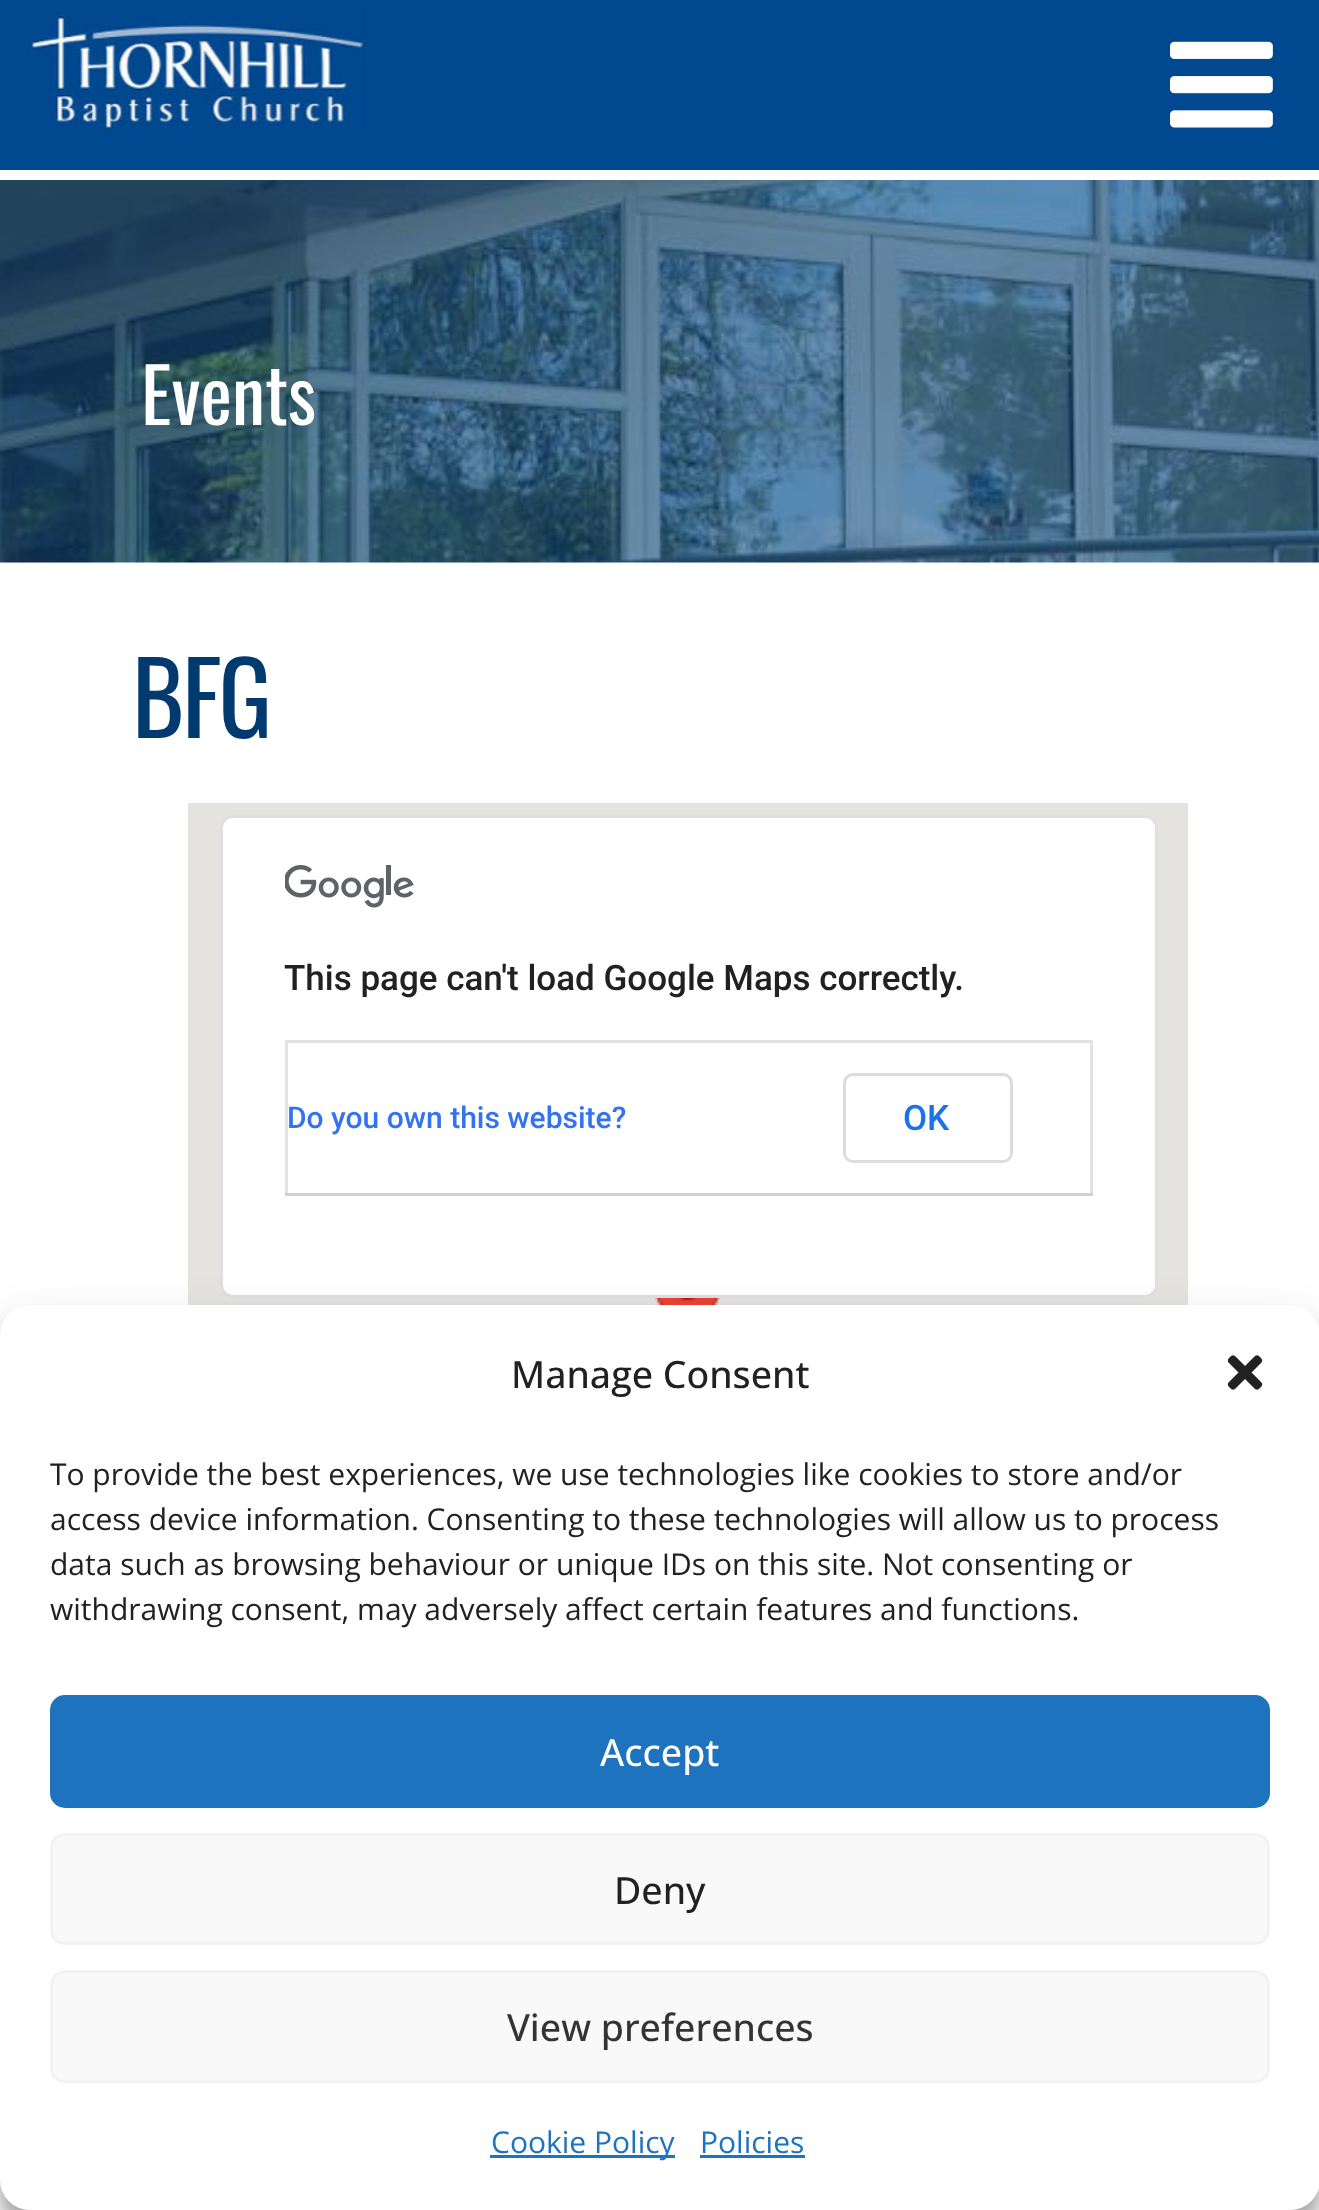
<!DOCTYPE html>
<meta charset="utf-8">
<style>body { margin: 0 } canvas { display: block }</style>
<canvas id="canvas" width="1319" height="2210"></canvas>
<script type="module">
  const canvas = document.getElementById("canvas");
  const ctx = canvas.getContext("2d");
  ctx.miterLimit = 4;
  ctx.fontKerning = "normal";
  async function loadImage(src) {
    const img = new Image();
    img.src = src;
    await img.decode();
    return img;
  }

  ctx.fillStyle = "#ffffff";
  ctx.fillRect(0, 0, 1319, 2210);
  ctx.fillStyle = "#00488f";
  ctx.fillRect(0, 0, 1319, 170);
  ctx.drawImage(await loadImage("img1.png"), 25, 13, 341, 120);
  ctx.drawImage(await loadImage("img2.png"), 1170, 41, 103, 87);
  ctx.drawImage(await loadImage("img3.png"), 0, 180, 1319, 383);
  ctx.font = "75px Oswald";
  ctx.fillStyle = "#ffffff";
  ctx.fillText("Events", 141, 425);
  ctx.letterSpacing = "-2.5px";
  ctx.font = "100px Oswald";
  ctx.fillStyle = "#003a6f";
  ctx.fillText("BFG", 132, 738);
  ctx.fillStyle = "#e5e3df";
  ctx.fillRect(188, 803, 1000, 502);
  ctx.drawImage(await loadImage("img4.png"), 655, 1298, 65, 7);
  ctx.fillStyle = "#ffffff";
  ctx.beginPath();
  ctx.roundRect(220, 815, 938, 483, 13);
  ctx.fill();
  ctx.beginPath();
  ctx.roundRect(221.5, 816.5, 935, 480, 11.5);
  ctx.strokeStyle = "rgba(0, 0, 0, 0.12)";
  ctx.lineWidth = 3;
  ctx.stroke();
  ctx.drawImage(await loadImage("img5.png"), 285, 865, 129, 43);
  ctx.letterSpacing = "0px";
  ctx.font = "500 35px Roboto";
  ctx.fillStyle = "#212121";
  ctx.fillText("This page can't load Google Maps correctly.", 284, 990);
  ctx.fillStyle = "#e3e3e3";
  ctx.fillRect(285, 1040, 808, 3);
  ctx.fillRect(1090, 1040, 3, 155);
  ctx.fillRect(285, 1040, 3, 155);
  ctx.font = "500 30px Roboto";
  ctx.fillStyle = "#3372f0";
  ctx.fillText("Do you own this website?", 287, 1128);
  ctx.fillStyle = "#d1d1d1";
  ctx.fillRect(285, 1193, 808, 3);
  ctx.beginPath();
  ctx.roundRect(844.5, 1074.5, 167, 87, 8.5);
  ctx.strokeStyle = "#dadce0";
  ctx.stroke();
  ctx.font = "500 35px Roboto";
  ctx.fillStyle = "#1a73e8";
  ctx.fillText("OK", 903, 1130);
  ctx.fillStyle = "rgba(0, 0, 0, 0.23)";
  ctx.filter = "blur(7.5px)";
  ctx.beginPath();
  ctx.roundRect(0, 1320, 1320, 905, 30);
  ctx.fill();
  ctx.filter = "none";
  ctx.fillStyle = "rgba(0, 0, 0, 0.19)";
  ctx.filter = "blur(25px)";
  ctx.beginPath();
  ctx.roundRect(0, 1330, 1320, 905, 30);
  ctx.fill();
  ctx.filter = "none";
  ctx.fillStyle = "#ffffff";
  ctx.beginPath();
  ctx.roundRect(0, 1305, 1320, 905, 30);
  ctx.fill();
  ctx.font = "500 37.5px Open Sans";
  ctx.fillStyle = "#212121";
  ctx.fillText("Manage Consent", 511, 1388);
  ctx.drawImage(await loadImage("img6.png"), 1227, 1355, 36, 35);
  ctx.font = "30px Open Sans";
  ctx.fillText("To provide the best experiences, we use technologies like cookies to store and/or", 50, 1485);
  ctx.fillText("access device information. Consenting to these technologies will allow us to process", 50, 1530);
  ctx.fillText("data such as browsing behaviour or unique IDs on this site. Not consenting or", 50, 1575);
  ctx.fillText("withdrawing consent, may adversely affect certain features and functions.", 50, 1620);
  ctx.fillStyle = "#1e73be";
  ctx.beginPath();
  ctx.roundRect(51.5, 1696.5, 1217, 110, 13.5);
  ctx.fill();
  ctx.strokeStyle = "#1e73be";
  ctx.stroke();
  ctx.font = "500 37.5px Open Sans";
  ctx.fillStyle = "#ffffff";
  ctx.fillText("Accept", 600, 1766);
  ctx.fillStyle = "#f9f9f9";
  ctx.beginPath();
  ctx.roundRect(51.5, 1834.5, 1217, 109, 13.5);
  ctx.fill();
  ctx.strokeStyle = "#f2f2f2";
  ctx.stroke();
  ctx.fillStyle = "#212121";
  ctx.fillText("Deny", 614, 1904);
  ctx.fillStyle = "#f9f9f9";
  ctx.beginPath();
  ctx.roundRect(51.5, 1971.5, 1217, 110, 13.5);
  ctx.fill();
  ctx.stroke();
  ctx.fillStyle = "#333333";
  ctx.fillText("View preferences", 507, 2041);
  ctx.fillStyle = "#1e73be";
  ctx.fillRect(490, 2155, 185, 3);
  ctx.font = "30px Open Sans";
  ctx.fillText("Cookie Policy", 491, 2153);
  ctx.fillText("Policies", 700, 2153);
  ctx.fillRect(700, 2155, 105, 3);
</script>
